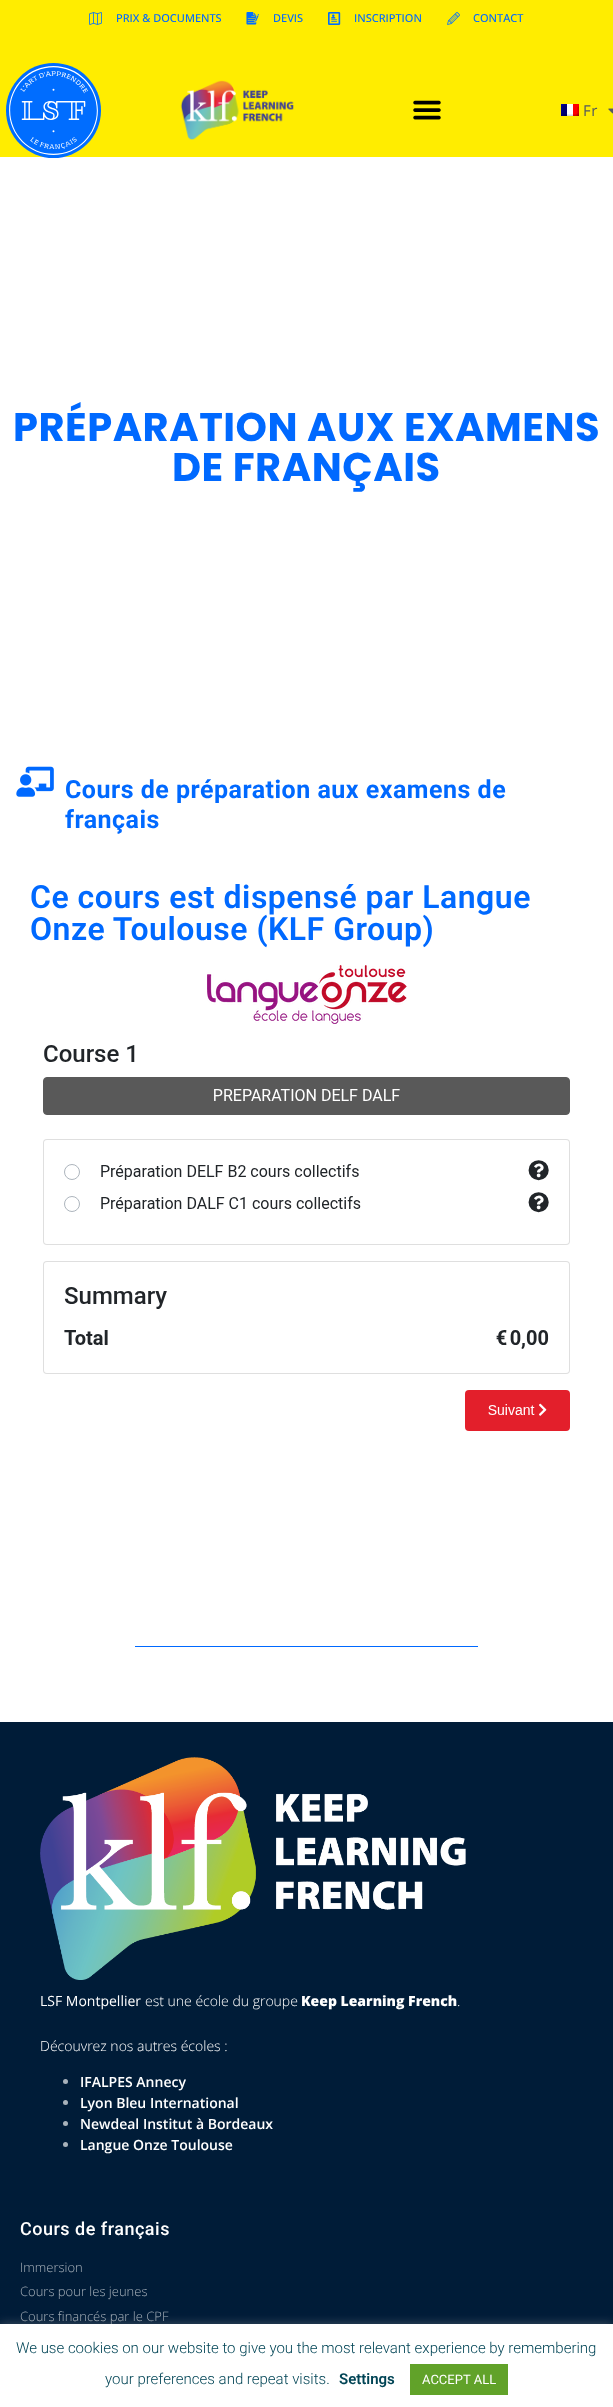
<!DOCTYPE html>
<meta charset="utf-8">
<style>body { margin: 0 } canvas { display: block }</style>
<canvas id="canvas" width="613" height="2407"></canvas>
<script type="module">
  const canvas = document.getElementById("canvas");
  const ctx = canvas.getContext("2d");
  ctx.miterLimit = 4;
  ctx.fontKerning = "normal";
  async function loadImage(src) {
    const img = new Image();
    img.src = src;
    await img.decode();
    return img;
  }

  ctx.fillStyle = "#ffffff";
  ctx.fillRect(0, 0, 613, 2407);
  ctx.fillStyle = "#ffed00";
  ctx.fillRect(0, 0, 613, 157);
  ctx.drawImage(await loadImage("img1.png"), 89, 12, 13, 13);
  ctx.font = "500 11px Open Sans";
  ctx.fillStyle = "#0069ff";
  ctx.fillText("PRIX & DOCUMENTS", 116, 22);
  ctx.drawImage(await loadImage("img2.png"), 246, 12, 13, 13);
  ctx.fillText("DEVIS", 273, 22);
  ctx.drawImage(await loadImage("img3.png"), 328, 12, 13, 13);
  ctx.fillText("INSCRIPTION", 354, 22);
  ctx.drawImage(await loadImage("img4.png"), 447, 12, 13, 13);
  ctx.fillText("CONTACT", 473, 22);
  ctx.drawImage(await loadImage("img5.png"), 6, 63, 95, 95);
  ctx.drawImage(await loadImage("img6.png"), 180, 80, 114, 60);
  ctx.drawImage(await loadImage("img7.png"), 413, 100, 28, 20);
  ctx.drawImage(await loadImage("img8.png"), 561, 104, 18, 12);
  ctx.letterSpacing = "0.5px";
  ctx.font = "15px Open Sans";
  ctx.fillStyle = "#54595f";
  ctx.fillText("Fr", 583, 116);
  ctx.drawImage(await loadImage("img9.png"), 608, 108, 5, 6);
  ctx.font = "bold 40px Poppins";
  ctx.fillStyle = "#0069ff";
  ctx.fillText("PRÉPARATION AUX EXAMENS", 13, 441);
  ctx.fillText("DE FRANÇAIS", 172, 481);
  ctx.drawImage(await loadImage("img10.png"), 16, 766, 38, 31);
  ctx.font = "bold 25px Roboto";
  ctx.fillText("Cours de préparation aux examens de", 65, 798);
  ctx.fillText("français", 65, 828);
  ctx.font = "600 32px Roboto";
  ctx.fillText("Ce cours est dispensé par Langue", 30, 908);
  ctx.fillText("Onze Toulouse (KLF Group)", 30, 940);
  ctx.drawImage(await loadImage("img11.png"), 207, 965, 200, 59);
  ctx.drawImage(await loadImage("img12.png"), 43, 1045, 527, 386);
  ctx.fillRect(135, 1646, 343, 1);
  ctx.fillStyle = "#001c38";
  ctx.fillRect(0, 1722, 613, 602);
  ctx.drawImage(await loadImage("img13.png"), 40, 1757, 426, 223);
  ctx.letterSpacing = "0px";
  ctx.font = "14px Open Sans";
  ctx.fillStyle = "#ffffff";
  ctx.fillText("LSF Montpellier", 40, 2006);
  ctx.font = "300 14px Open Sans";
  ctx.fillText("est une école du groupe", 145, 2006);
  ctx.font = "800 14px Open Sans";
  ctx.fillText("Keep Learning French", 301, 2006);
  ctx.font = "300 14px Open Sans";
  ctx.fillText(".", 457, 2006);
  ctx.fillText("Découvrez nos autres écoles :", 40, 2051);
  ctx.fillStyle = "#a8b2bb";
  ctx.beginPath();
  ctx.arc(65.5, 2081.5, 2.5, 0, Math.PI * 2);
  ctx.fill();
  ctx.font = "600 14px Open Sans";
  ctx.fillStyle = "#ffffff";
  ctx.fillText("IFALPES Annecy", 80, 2087);
  ctx.fillStyle = "#a8b2bb";
  ctx.beginPath();
  ctx.arc(65.5, 2102.5, 2.5, 0, Math.PI * 2);
  ctx.fill();
  ctx.fillStyle = "#ffffff";
  ctx.fillText("Lyon Bleu International", 80, 2108);
  ctx.fillStyle = "#a8b2bb";
  ctx.beginPath();
  ctx.arc(65.5, 2123.5, 2.5, 0, Math.PI * 2);
  ctx.fill();
  ctx.fillStyle = "#ffffff";
  ctx.fillText("Newdeal Institut à Bordeaux", 80, 2129);
  ctx.fillStyle = "#a8b2bb";
  ctx.beginPath();
  ctx.arc(65.5, 2144.5, 2.5, 0, Math.PI * 2);
  ctx.fill();
  ctx.fillStyle = "#ffffff";
  ctx.fillText("Langue Onze Toulouse", 80, 2150);
  ctx.letterSpacing = "0.5px";
  ctx.font = "500 18px Roboto";
  ctx.fillText("Cours de français", 20, 2235);
  ctx.letterSpacing = "0px";
  ctx.font = "300 13px Open Sans";
  ctx.fillStyle = "#a8b2bb";
  ctx.fillText("Immersion", 20, 2272);
  ctx.fillText("Cours pour les jeunes", 20, 2296);
  ctx.fillText("Cours financés par le CPF", 20, 2321);
  ctx.fillStyle = "rgba(172, 171, 171, 0.3)";
  ctx.filter = "blur(5px)";
  ctx.beginPath();
  ctx.rect(0, 2323, 613, 83);
  ctx.fill();
  ctx.filter = "none";
  ctx.fillStyle = "#ffffff";
  ctx.fillRect(0, 2324, 613, 83);
  ctx.font = "300 15px Roboto";
  ctx.fillStyle = "#004455";
  ctx.fillText("We use cookies on our website to give you the most relevant experience by remembering", 16, 2353);
  ctx.fillText("your preferences and repeat visits.", 105, 2384);
  ctx.font = "600 15px Roboto";
  ctx.fillText("Settings", 339, 2384);
  ctx.fillStyle = "#61a229";
  ctx.fillRect(410, 2364, 98, 31);
  ctx.font = "13px Roboto";
  ctx.fillStyle = "#ffffff";
  ctx.fillText("ACCEPT ALL", 422, 2384);
</script>
